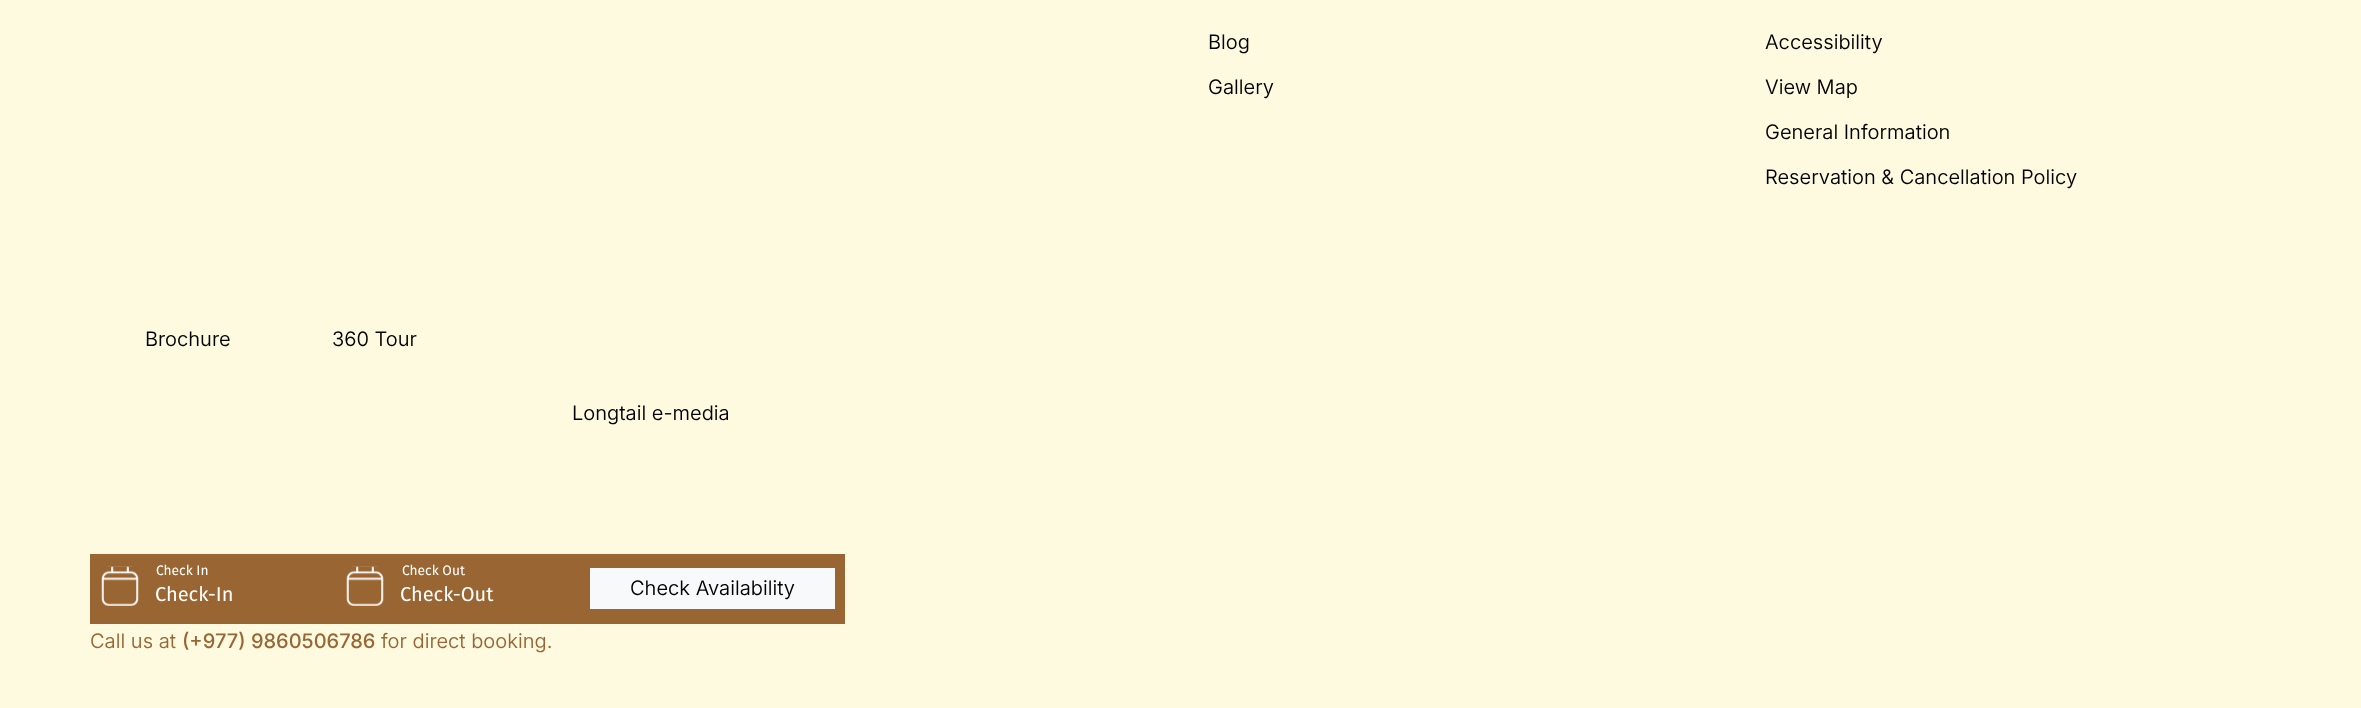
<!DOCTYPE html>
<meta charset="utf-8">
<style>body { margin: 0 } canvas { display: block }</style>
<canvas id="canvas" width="2361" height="708"></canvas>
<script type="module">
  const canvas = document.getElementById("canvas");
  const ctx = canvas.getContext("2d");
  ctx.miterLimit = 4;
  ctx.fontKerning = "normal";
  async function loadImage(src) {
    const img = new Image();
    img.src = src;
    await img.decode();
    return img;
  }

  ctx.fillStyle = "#fefae0";
  ctx.fillRect(0, 0, 2361, 708);
  ctx.font = "300 20px Inter";
  ctx.fillStyle = "#000000";
  ctx.fillText("Blog", 1208, 49);
  ctx.fillText("Gallery", 1208, 94);
  ctx.fillText("Accessibility", 1765, 49);
  ctx.fillText("View Map", 1765, 94);
  ctx.fillText("General Information", 1765, 139);
  ctx.fillText("Reservation & Cancellation Policy", 1765, 184);
  ctx.fillText("Brochure", 145, 346);
  ctx.fillText("360 Tour", 332, 346);
  ctx.fillText("Longtail e-media", 572, 420);
  ctx.fillStyle = "#996633";
  ctx.fillRect(90, 554, 755, 70);
  ctx.drawImage(await loadImage("img1.png"), 101, 566, 38, 40);
  ctx.font = "13.75px Fira Sans";
  ctx.fillStyle = "#ffffff";
  ctx.fillText("Check In", 156, 575);
  ctx.font = "20px Fira Sans";
  ctx.fillText("Check-In", 155, 601);
  ctx.drawImage(await loadImage("img1.png"), 346, 566, 38, 40);
  ctx.font = "13.75px Fira Sans";
  ctx.fillText("Check Out", 402, 575);
  ctx.font = "20px Fira Sans";
  ctx.fillText("Check-Out", 400, 601);
  ctx.fillStyle = "#f8f9fa";
  ctx.fillRect(590, 568, 245, 41);
  ctx.font = "300 20px Inter";
  ctx.fillStyle = "#000000";
  ctx.fillText("Check Availability", 630, 595);
  ctx.fillStyle = "#996633";
  ctx.fillText("Call us at", 90, 648);
  ctx.font = "500 20px Inter";
  ctx.fillText("(+977) 9860506786", 182, 648);
  ctx.font = "300 20px Inter";
  ctx.fillText("for direct booking.", 381, 648);
</script>
